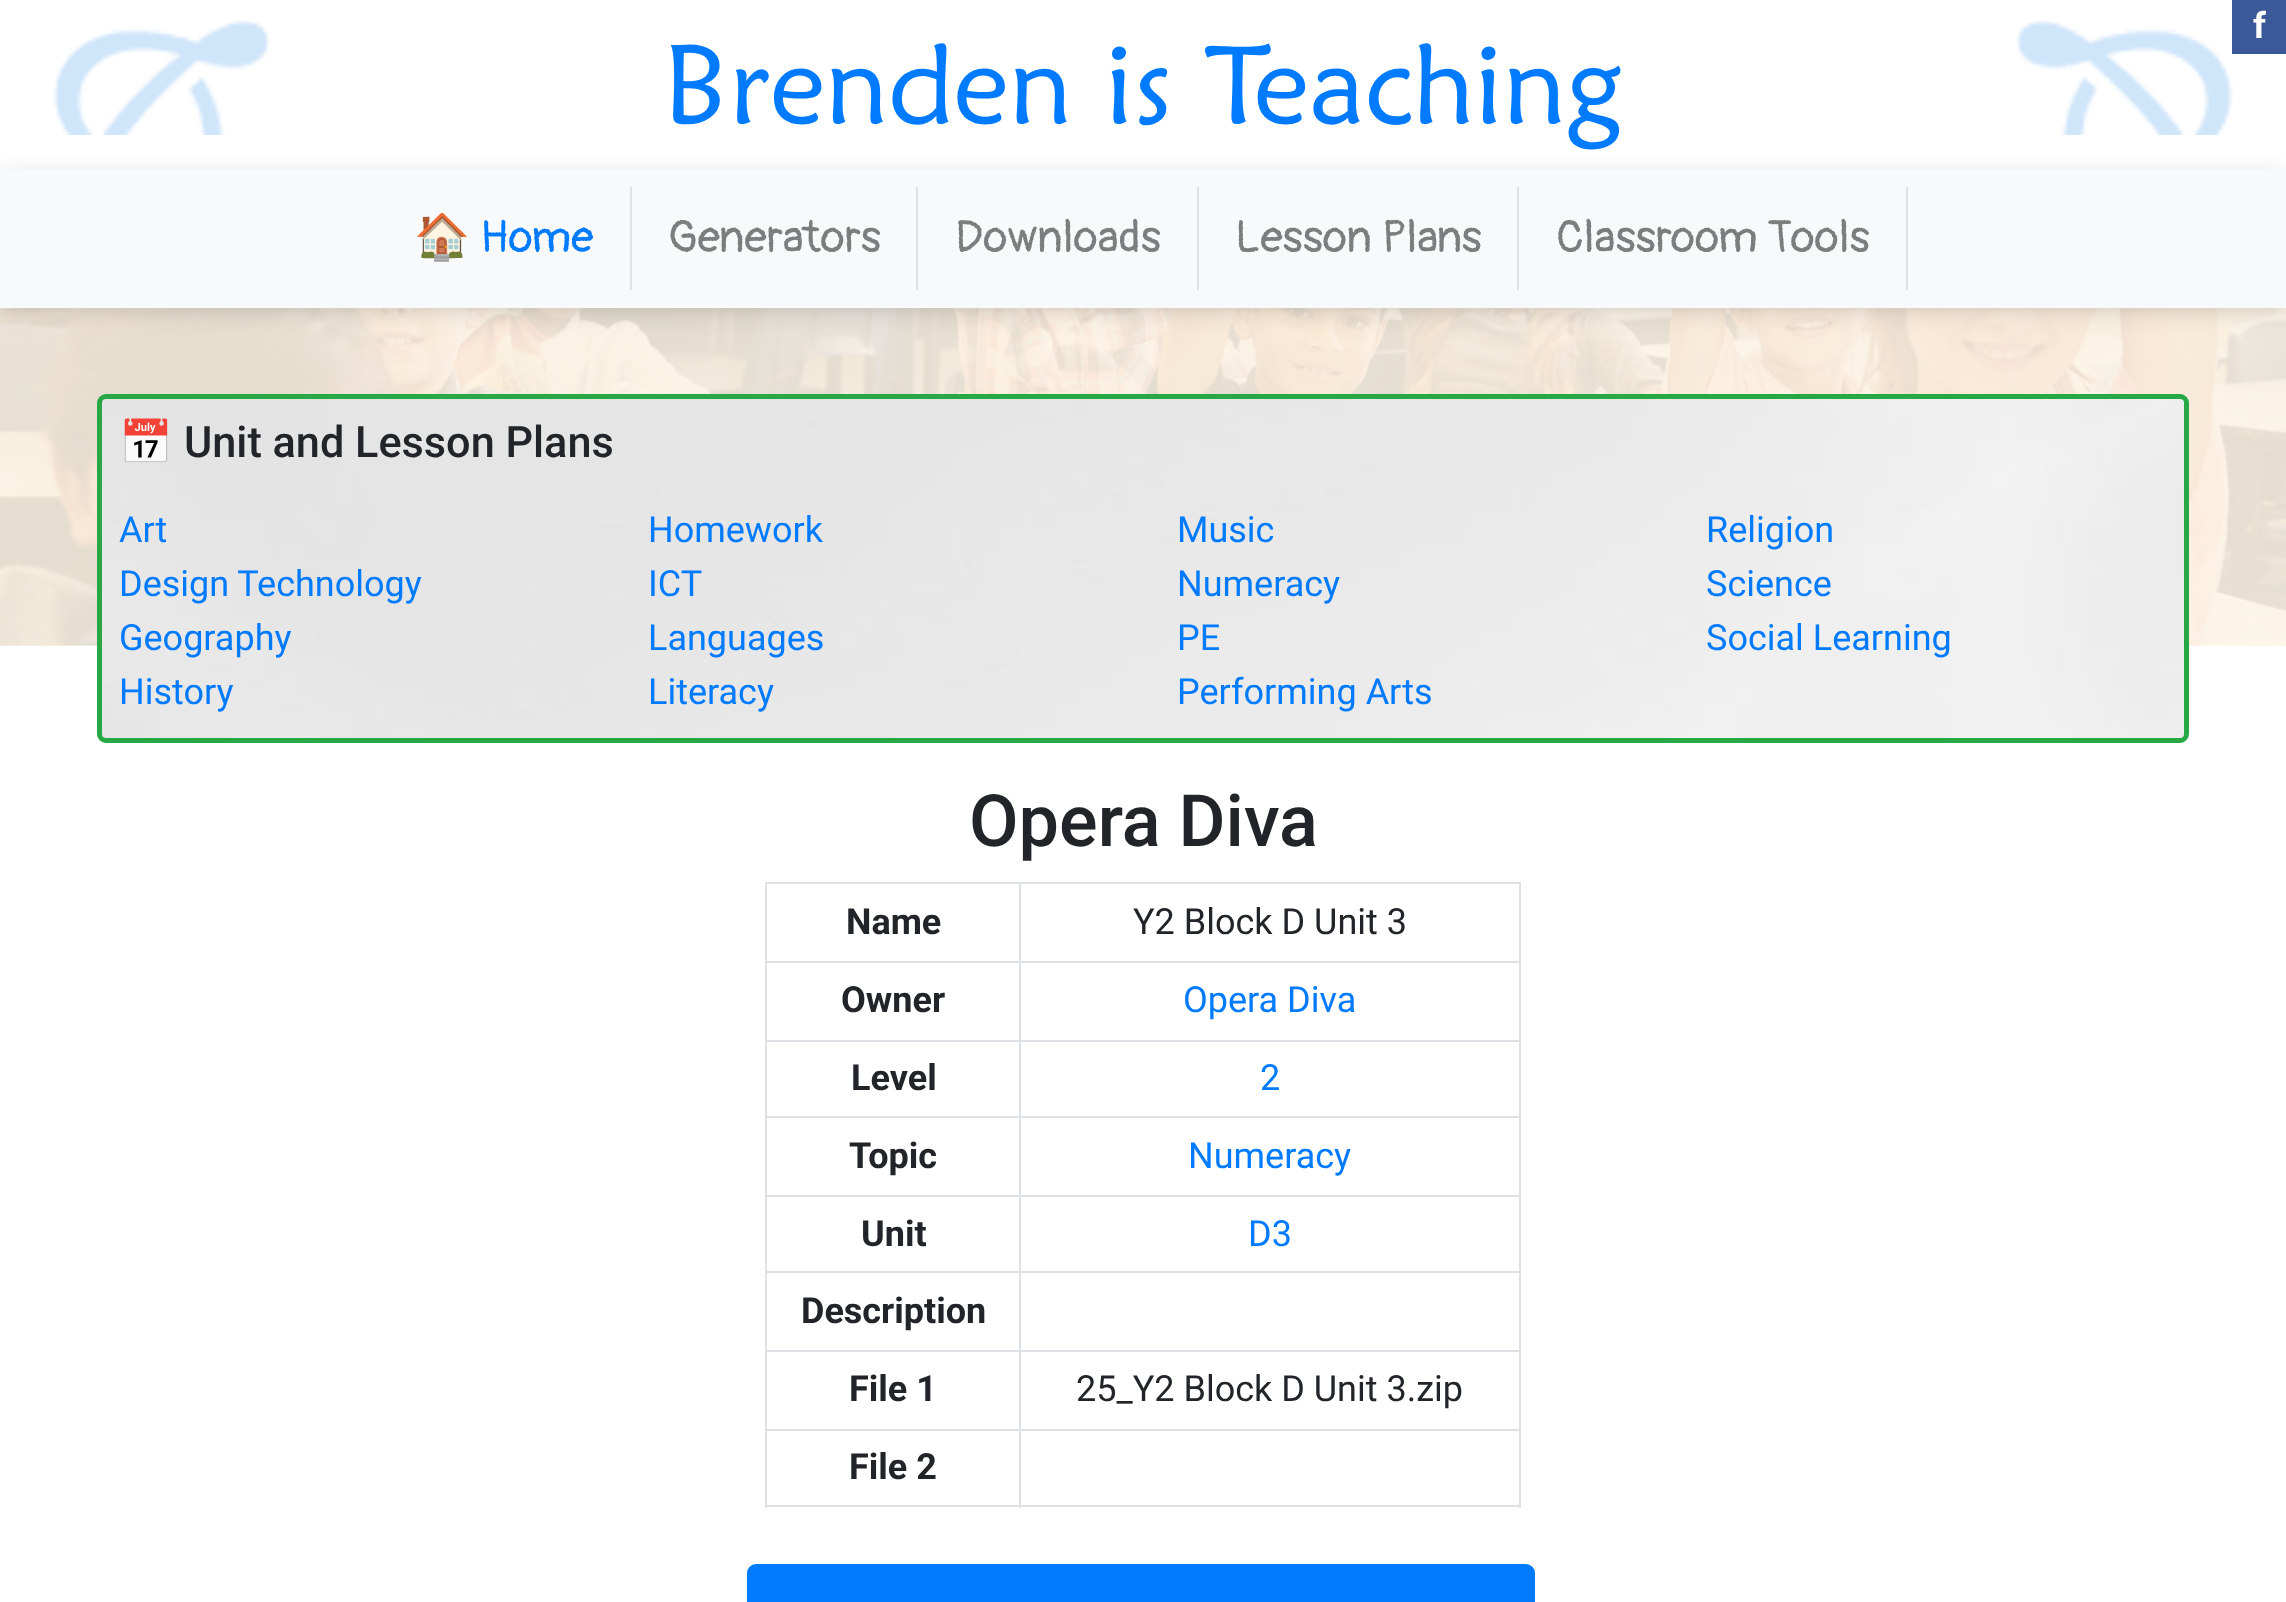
<!DOCTYPE html>
<meta charset="utf-8">
<style>body { margin: 0 } canvas { display: block }</style>
<canvas id="canvas" width="2286" height="1602"></canvas>
<script type="module">
  const canvas = document.getElementById("canvas");
  const ctx = canvas.getContext("2d");
  ctx.miterLimit = 4;
  ctx.fontKerning = "normal";
  async function loadImage(src) {
    const img = new Image();
    img.src = src;
    await img.decode();
    return img;
  }

  ctx.fillStyle = "#ffffff";
  ctx.fillRect(0, 0, 2286, 1602);
  ctx.drawImage(await loadImage("img2.png"), 2016, 20, 217, 115);
  ctx.fillStyle = "#3b5998";
  ctx.fillRect(2232, 0, 54, 54);
  ctx.font = "bold 36px Roboto";
  ctx.fillStyle = "#ffffff";
  ctx.fillText("f", 2253, 38);
  ctx.drawImage(await loadImage("img1.png"), 53, 20, 217, 115);
  ctx.font = "112.5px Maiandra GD";
  ctx.fillStyle = "#007bff";
  ctx.fillText("Brenden is Teaching", 663, 124);
  ctx.drawImage(await loadImage("img3.png"), 0, 308, 2286, 338);
  ctx.fillStyle = "rgba(0, 0, 0, 0.12)";
  ctx.filter = "blur(11px)";
  ctx.beginPath();
  ctx.rect(0, 173, 2286, 140);
  ctx.fill();
  ctx.filter = "none";
  ctx.fillStyle = "rgba(0, 0, 0, 0.16)";
  ctx.filter = "blur(5.5px)";
  ctx.beginPath();
  ctx.rect(9, 182, 2268, 122);
  ctx.fill();
  ctx.filter = "none";
  ctx.fillStyle = "#f8f9fa";
  ctx.fillRect(0, 169, 2286, 139);
  ctx.fillStyle = "#dee2e6";
  ctx.fillRect(630, 187, 2, 103);
  ctx.font = "45px Noto Color Emoji";
  ctx.fillStyle = "#007bff";
  ctx.fillText("🏠", 414, 252);
  ctx.font = "45px Pangolin";
  ctx.fillText("Home", 480, 252);
  ctx.fillStyle = "#dee2e6";
  ctx.fillRect(916, 187, 2, 103);
  ctx.fillStyle = "#7c7d7d";
  ctx.fillText("Generators", 668, 252);
  ctx.fillStyle = "#dee2e6";
  ctx.fillRect(1197, 187, 2, 103);
  ctx.fillStyle = "#7c7d7d";
  ctx.fillText("Downloads", 955, 252);
  ctx.fillStyle = "#dee2e6";
  ctx.fillRect(1517, 187, 2, 103);
  ctx.fillStyle = "#7c7d7d";
  ctx.fillText("Lesson Plans", 1235, 252);
  ctx.fillStyle = "#dee2e6";
  ctx.fillRect(1906, 187, 2, 103);
  ctx.fillStyle = "#7c7d7d";
  ctx.fillText("Classroom Tools", 1556, 252);
  ctx.drawImage(await loadImage("img4.png"), 97, 394, 2092, 349);
  ctx.beginPath();
  ctx.roundRect(99.5, 396.5, 2087, 344, 6.5);
  ctx.strokeStyle = "#28a745";
  ctx.lineWidth = 5;
  ctx.stroke();
  ctx.font = "43.25px Noto Color Emoji";
  ctx.fillStyle = "#212529";
  ctx.fillText("📅", 119, 457);
  ctx.font = "500 43.25px Roboto";
  ctx.fillText("Unit and Lesson Plans", 184, 457);
  ctx.font = "36px Roboto";
  ctx.fillStyle = "#007bff";
  ctx.fillText("Art", 119, 542);
  ctx.fillText("Design Technology", 119, 596);
  ctx.fillText("Geography", 119, 650);
  ctx.fillText("History", 119, 704);
  ctx.fillText("Homework", 648, 542);
  ctx.fillText("ICT", 648, 596);
  ctx.fillText("Languages", 648, 650);
  ctx.fillText("Literacy", 648, 704);
  ctx.fillText("Music", 1177, 542);
  ctx.fillText("Numeracy", 1177, 596);
  ctx.fillText("PE", 1177, 650);
  ctx.fillText("Performing Arts", 1177, 704);
  ctx.fillText("Religion", 1706, 542);
  ctx.fillText("Science", 1706, 596);
  ctx.fillText("Social Learning", 1706, 650);
  ctx.font = "500 72px Roboto";
  ctx.fillStyle = "#212529";
  ctx.fillText("Opera Diva", 969, 846);
  ctx.fillStyle = "#dee2e6";
  ctx.fillRect(765, 882, 756, 2);
  ctx.fillRect(1519, 882, 2, 626);
  ctx.fillRect(765, 1505, 756, 2);
  ctx.fillRect(765, 882, 2, 626);
  ctx.font = "bold 36px Roboto";
  ctx.fillStyle = "#212529";
  ctx.fillText("Name", 846, 934);
  ctx.fillStyle = "#dee2e6";
  ctx.fillRect(1019, 961, 502, 2);
  ctx.fillRect(1019, 1040, 502, 2);
  ctx.fillRect(1019, 1116, 502, 2);
  ctx.fillRect(1019, 1195, 502, 2);
  ctx.fillRect(1019, 1271, 502, 2);
  ctx.fillRect(1019, 1350, 502, 2);
  ctx.fillRect(1019, 1429, 502, 2);
  ctx.fillRect(1019, 1429, 2, 79);
  ctx.fillRect(765, 1429, 257, 2);
  ctx.fillRect(1019, 1350, 2, 81);
  ctx.fillRect(765, 1350, 257, 2);
  ctx.fillRect(1019, 1271, 2, 81);
  ctx.fillRect(765, 1271, 257, 2);
  ctx.fillRect(1019, 1195, 2, 79);
  ctx.fillRect(765, 1195, 257, 2);
  ctx.fillRect(1019, 1116, 2, 81);
  ctx.fillRect(765, 1116, 257, 2);
  ctx.fillRect(1019, 1040, 2, 78);
  ctx.fillRect(765, 1040, 257, 2);
  ctx.fillRect(1019, 961, 2, 81);
  ctx.fillRect(765, 961, 257, 2);
  ctx.fillRect(1019, 882, 2, 81);
  ctx.font = "36px Roboto";
  ctx.fillStyle = "#212529";
  ctx.fillText("Y2 Block D Unit 3", 1133, 934);
  ctx.font = "bold 36px Roboto";
  ctx.fillText("Owner", 841, 1012);
  ctx.font = "36px Roboto";
  ctx.fillStyle = "#007bff";
  ctx.fillText("Opera Diva", 1183, 1012);
  ctx.font = "bold 36px Roboto";
  ctx.fillStyle = "#212529";
  ctx.fillText("Level", 851, 1090);
  ctx.font = "36px Roboto";
  ctx.fillStyle = "#007bff";
  ctx.fillText("2", 1260, 1090);
  ctx.font = "bold 36px Roboto";
  ctx.fillStyle = "#212529";
  ctx.fillText("Topic", 849, 1168);
  ctx.font = "36px Roboto";
  ctx.fillStyle = "#007bff";
  ctx.fillText("Numeracy", 1188, 1168);
  ctx.font = "bold 36px Roboto";
  ctx.fillStyle = "#212529";
  ctx.fillText("Unit", 861, 1246);
  ctx.font = "36px Roboto";
  ctx.fillStyle = "#007bff";
  ctx.fillText("D3", 1248, 1246);
  ctx.font = "bold 36px Roboto";
  ctx.fillStyle = "#212529";
  ctx.fillText("Description", 801, 1323);
  ctx.fillText("File 1", 849, 1401);
  ctx.font = "36px Roboto";
  ctx.fillText("25_Y2 Block D Unit 3.zip", 1076, 1401);
  ctx.font = "bold 36px Roboto";
  ctx.fillText("File 2", 849, 1479);
  ctx.fillStyle = "#007bff";
  ctx.beginPath();
  ctx.roundRect(748, 1565, 786, 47, 8);
  ctx.fill();
  ctx.strokeStyle = "#007bff";
  ctx.lineWidth = 2;
  ctx.stroke();
</script>
